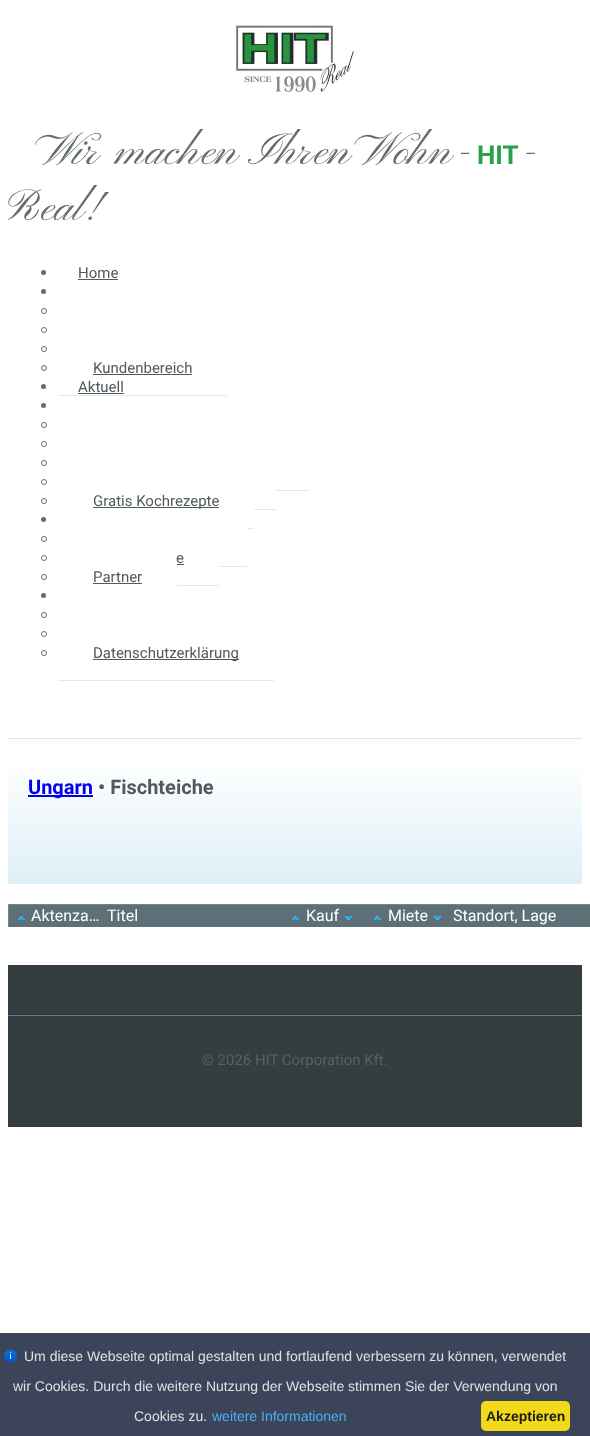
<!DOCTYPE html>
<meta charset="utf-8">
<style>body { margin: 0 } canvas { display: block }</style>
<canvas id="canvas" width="590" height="1436"></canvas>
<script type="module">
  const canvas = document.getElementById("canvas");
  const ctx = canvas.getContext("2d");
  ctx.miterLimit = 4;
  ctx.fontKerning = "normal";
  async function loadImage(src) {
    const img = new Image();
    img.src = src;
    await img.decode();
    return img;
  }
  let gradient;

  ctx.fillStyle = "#ffffff";
  ctx.fillRect(0, 0, 590, 1436);
  ctx.drawImage(await loadImage("img1.png"), 235, 25, 119, 68);
  ctx.font = "45px Pinyon Script";
  ctx.fillStyle = "#656c70";
  ctx.fillText("Wir machen Ihren Wohn-", 48, 164);
  ctx.font = "bold 26px Roboto";
  ctx.fillStyle = "#26a14d";
  ctx.fillText("HIT", 477, 164);
  ctx.font = "45px Pinyon Script";
  ctx.fillStyle = "#656c70";
  ctx.fillText("-", 519, 164);
  ctx.save();
  ctx.beginPath();
  ctx.rect(8, 8, 574, 229);
  ctx.clip();
  ctx.fillText("Real!", 8, 220);
  ctx.restore();
  ctx.fillStyle = "#dee5e8";
  ctx.fillRect(8, 738, 574, 1);
  ctx.fillStyle = "#656c70";
  ctx.beginPath();
  ctx.arc(43.5, 272.5, 2.5, 0, Math.PI * 2);
  ctx.fill();
  ctx.font = "15px Roboto";
  ctx.fillStyle = "#4f595e";
  ctx.fillText("Home", 78, 278);
  ctx.fillRect(78, 279, 40, 1);
  ctx.fillStyle = "#656c70";
  ctx.beginPath();
  ctx.arc(43.5, 291.5, 2.5, 0, Math.PI * 2);
  ctx.fill();
  ctx.beginPath();
  ctx.arc(44, 311, 2.5, 0, Math.PI * 2);
  ctx.strokeStyle = "#656c70";
  ctx.stroke();
  ctx.beginPath();
  ctx.arc(44, 330, 2.5, 0, Math.PI * 2);
  ctx.stroke();
  ctx.beginPath();
  ctx.arc(44, 349, 2.5, 0, Math.PI * 2);
  ctx.stroke();
  ctx.beginPath();
  ctx.arc(44, 368, 2.5, 0, Math.PI * 2);
  ctx.stroke();
  ctx.fillStyle = "#4f595e";
  ctx.fillText("Kundenbereich", 93, 373);
  ctx.fillStyle = "#e2e8ec";
  ctx.fillRect(58, 395, 169, 1);
  ctx.fillStyle = "#4f595e";
  ctx.fillRect(93, 374, 99, 1);
  ctx.fillStyle = "#656c70";
  ctx.beginPath();
  ctx.arc(43.5, 386.5, 2.5, 0, Math.PI * 2);
  ctx.fill();
  ctx.fillStyle = "#4f595e";
  ctx.fillText("Aktuell", 78, 392);
  ctx.fillRect(78, 393, 46, 1);
  ctx.fillStyle = "#656c70";
  ctx.beginPath();
  ctx.arc(43.5, 405.5, 2.5, 0, Math.PI * 2);
  ctx.fill();
  ctx.beginPath();
  ctx.arc(44, 425, 2.5, 0, Math.PI * 2);
  ctx.stroke();
  ctx.beginPath();
  ctx.arc(44, 444, 2.5, 0, Math.PI * 2);
  ctx.stroke();
  ctx.beginPath();
  ctx.arc(44, 463, 2.5, 0, Math.PI * 2);
  ctx.stroke();
  ctx.fillStyle = "#e2e8ec";
  ctx.fillRect(276, 490, 34, 1);
  ctx.beginPath();
  ctx.arc(44, 482, 2.5, 0, Math.PI * 2);
  ctx.stroke();
  ctx.fillRect(254, 509, 22, 1);
  ctx.beginPath();
  ctx.arc(44, 501, 2.5, 0, Math.PI * 2);
  ctx.stroke();
  ctx.fillStyle = "#4f595e";
  ctx.fillRect(93, 507, 126, 1);
  ctx.fillText("Gratis Kochrezepte", 93, 506);
  ctx.fillStyle = "#e2e8ec";
  ctx.fillRect(247, 528, 7, 1);
  ctx.fillStyle = "#656c70";
  ctx.beginPath();
  ctx.arc(43.5, 519.5, 2.5, 0, Math.PI * 2);
  ctx.fill();
  ctx.beginPath();
  ctx.arc(44, 539, 2.5, 0, Math.PI * 2);
  ctx.stroke();
  ctx.fillStyle = "#e2e8ec";
  ctx.fillRect(219, 566, 28, 1);
  ctx.beginPath();
  ctx.arc(44, 558, 2.5, 0, Math.PI * 2);
  ctx.stroke();
  ctx.fillStyle = "#4f595e";
  ctx.fillText("e", 176, 563);
  ctx.fillStyle = "#e2e8ec";
  ctx.fillRect(177, 585, 42, 1);
  ctx.fillStyle = "#4f595e";
  ctx.fillRect(177, 564, 7, 1);
  ctx.beginPath();
  ctx.arc(44, 577, 2.5, 0, Math.PI * 2);
  ctx.stroke();
  ctx.fillText("Partner", 93, 582);
  ctx.fillRect(93, 583, 49, 1);
  ctx.fillStyle = "#656c70";
  ctx.beginPath();
  ctx.arc(43.5, 595.5, 2.5, 0, Math.PI * 2);
  ctx.fill();
  ctx.beginPath();
  ctx.arc(44, 615, 2.5, 0, Math.PI * 2);
  ctx.stroke();
  ctx.beginPath();
  ctx.arc(44, 634, 2.5, 0, Math.PI * 2);
  ctx.stroke();
  ctx.beginPath();
  ctx.arc(44, 653, 2.5, 0, Math.PI * 2);
  ctx.stroke();
  ctx.fillStyle = "#4f595e";
  ctx.fillRect(93, 659, 146, 1);
  ctx.fillText("Datenschutzerklärung", 93, 658);
  ctx.fillStyle = "#e2e8ec";
  ctx.fillRect(58, 680, 216, 1);
  gradient = ctx.createLinearGradient(295, 759, 295, 884);
  gradient.addColorStop(0, "#ffffff");
  gradient.addColorStop(1, "#deeff7");
  ctx.fillStyle = gradient;
  ctx.fillRect(8, 768, 574, 116);
  ctx.fillStyle = "#0000ee";
  ctx.fillRect(28, 795, 65, 2);
  ctx.font = "bold 20px Roboto";
  ctx.fillText("Ungarn", 28, 794);
  ctx.fillStyle = "#4f595e";
  ctx.fillText("• Fischteiche", 98, 794);
  ctx.fillStyle = "#808080";
  ctx.fillRect(8, 904, 582, 1);
  ctx.fillRect(8, 904, 1, 23);
  ctx.fillStyle = "#5d7078";
  ctx.fillRect(9, 905, 581, 22);
  ctx.drawImage(await loadImage("img2.png"), 18, 916, 7, 4);
  ctx.font = "16px Roboto";
  ctx.fillStyle = "#ffffff";
  ctx.fillText("Aktenza…", 31, 921);
  ctx.fillText("Titel", 107, 921);
  ctx.drawImage(await loadImage("img2.png"), 292, 916, 7, 4);
  ctx.fillText("Kauf", 306, 921);
  ctx.drawImage(await loadImage("img3.png"), 345, 916, 7, 4);
  ctx.drawImage(await loadImage("img2.png"), 374, 916, 7, 4);
  ctx.fillText("Miete", 388, 921);
  ctx.drawImage(await loadImage("img3.png"), 434, 916, 7, 4);
  ctx.fillText("Standort, Lage", 453, 921);
  ctx.fillStyle = "#363d41";
  ctx.fillRect(8, 965, 574, 162);
  ctx.fillStyle = "#6a7982";
  ctx.fillRect(8, 1015, 574, 1);
  ctx.font = "15px Roboto";
  ctx.fillStyle = "#546168";
  ctx.fillText("© 2026 HIT Corporation Kft.", 202, 1065);
  ctx.fillStyle = "#3b4459";
  ctx.fillRect(0, 1333, 590, 103);
  ctx.drawImage(await loadImage("img4.png"), 4, 1349, 13, 14);
  ctx.font = "14px Liberation Sans";
  ctx.fillStyle = "#e0e0e0";
  ctx.fillText("Um diese Webseite optimal gestalten und fortlaufend verbessern zu können, verwendet", 24, 1361);
  ctx.fillText("wir Cookies. Durch die weitere Nutzung der Webseite stimmen Sie der Verwendung von", 13, 1391);
  ctx.fillText("Cookies zu.", 134, 1421);
  ctx.fillStyle = "#46b1f2";
  ctx.fillText("weitere Informationen", 212, 1421);
  ctx.fillStyle = "#f2da1a";
  ctx.beginPath();
  ctx.roundRect(481, 1401, 89, 30, 5);
  ctx.fill();
  ctx.font = "bold 14px Liberation Sans";
  ctx.fillStyle = "#1a1a1a";
  ctx.fillText("Akzeptieren", 486, 1421);
</script>
